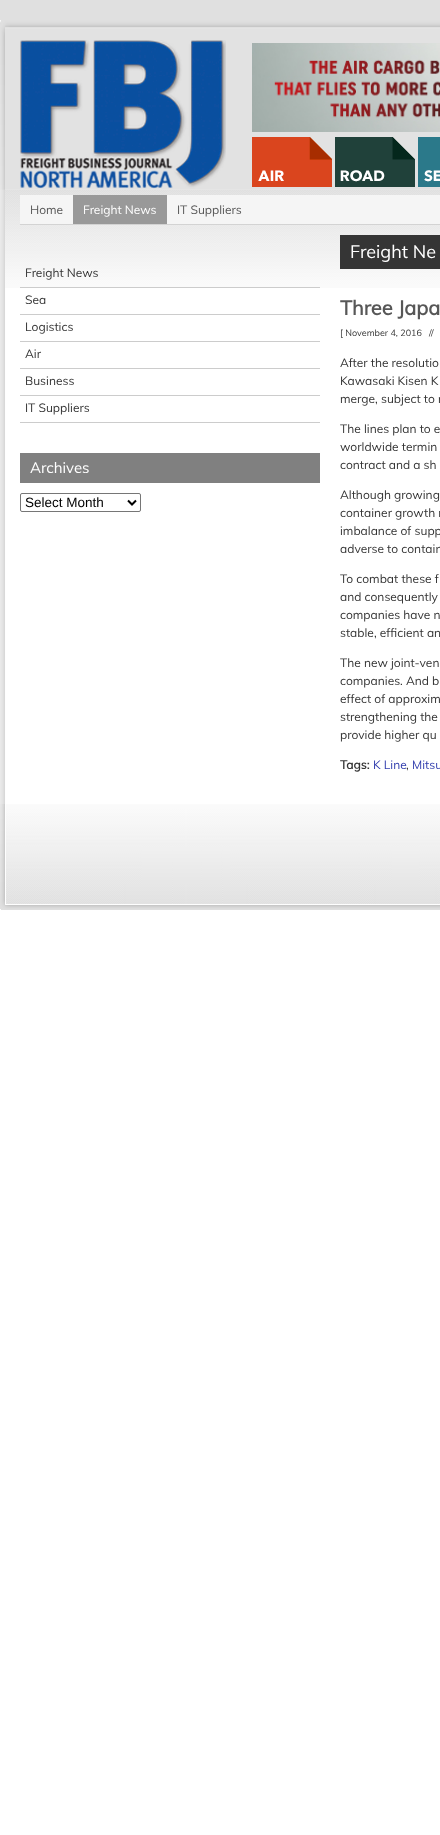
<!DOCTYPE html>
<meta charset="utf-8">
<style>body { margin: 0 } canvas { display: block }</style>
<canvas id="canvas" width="440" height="1835"></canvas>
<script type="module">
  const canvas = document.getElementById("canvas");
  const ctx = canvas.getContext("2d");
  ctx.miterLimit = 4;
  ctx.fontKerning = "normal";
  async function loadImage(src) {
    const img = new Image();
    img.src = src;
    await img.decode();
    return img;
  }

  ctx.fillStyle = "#ffffff";
  ctx.fillRect(0, 0, 440, 1835);
  ctx.drawImage(await loadImage("img1.png"), 0, 0, 440, 190);
  ctx.drawImage(await loadImage("img2.png"), 0, 20, 440, 170);
  ctx.drawImage(await loadImage("img3.png"), 20, 40, 206, 149);
  ctx.drawImage(await loadImage("img4.png"), 252, 43, 188, 89);
  ctx.drawImage(await loadImage("img5.png"), 252, 137, 80, 50);
  ctx.drawImage(await loadImage("img6.png"), 335, 137, 80, 50);
  ctx.drawImage(await loadImage("img7.png"), 418, 137, 22, 50);
  ctx.drawImage(await loadImage("img8.png"), 0, 190, 440, 614);
  ctx.drawImage(await loadImage("img9.png"), 5, 190, 435, 98);
  ctx.fillStyle = "#f5f5f5";
  ctx.fillRect(20, 195, 420, 29);
  ctx.fillStyle = "#d3d3d3";
  ctx.fillRect(20, 224, 420, 1);
  ctx.font = "12px Muli";
  ctx.fillStyle = "#575757";
  ctx.fillText("Home", 30, 214);
  ctx.fillStyle = "#999999";
  ctx.fillRect(73, 195, 94, 29);
  ctx.fillStyle = "#ffffff";
  ctx.fillText("Freight News", 83, 214);
  ctx.fillStyle = "#575757";
  ctx.fillText("IT Suppliers", 177, 214);
  ctx.fillStyle = "#cccccc";
  ctx.fillRect(20, 287, 300, 1);
  ctx.fillStyle = "#353535";
  ctx.fillText("Freight News", 25, 277);
  ctx.fillStyle = "#cccccc";
  ctx.fillRect(20, 314, 300, 1);
  ctx.fillStyle = "#353535";
  ctx.fillText("Sea", 25, 304);
  ctx.fillStyle = "#cccccc";
  ctx.fillRect(20, 341, 300, 1);
  ctx.fillStyle = "#353535";
  ctx.fillText("Logistics", 25, 331);
  ctx.fillStyle = "#cccccc";
  ctx.fillRect(20, 368, 300, 1);
  ctx.fillStyle = "#353535";
  ctx.fillText("Air", 25, 358);
  ctx.fillStyle = "#cccccc";
  ctx.fillRect(20, 395, 300, 1);
  ctx.fillStyle = "#353535";
  ctx.fillText("Business", 25, 385);
  ctx.fillStyle = "#cccccc";
  ctx.fillRect(20, 422, 300, 1);
  ctx.fillStyle = "#353535";
  ctx.fillText("IT Suppliers", 25, 412);
  ctx.fillStyle = "#808080";
  ctx.fillRect(20, 453, 300, 30);
  ctx.font = "15px Muli";
  ctx.fillStyle = "#ffffff";
  ctx.fillText("Archives", 30, 473);
  ctx.beginPath();
  ctx.roundRect(20.5, 493.5, 120, 18, 1.5);
  ctx.strokeStyle = "#767676";
  ctx.stroke();
  ctx.beginPath();
  ctx.moveTo(128, 500.5);
  ctx.lineTo(132, 504.5);
  ctx.lineTo(136, 500.5);
  ctx.strokeStyle = "#000000";
  ctx.lineWidth = 2;
  ctx.stroke();
  ctx.font = "13.5px Liberation Sans";
  ctx.fillStyle = "#000000";
  ctx.fillText("Select Month", 25, 507);
  ctx.fillStyle = "#353535";
  ctx.fillRect(340, 235, 100, 34);
  ctx.font = "18px Muli";
  ctx.fillStyle = "#ffffff";
  ctx.fillText("Freight Ne", 350, 258);
  ctx.font = "bold 20px Muli";
  ctx.fillStyle = "#575757";
  ctx.fillText("Three Japa", 340, 315);
  ctx.font = "9px Muli";
  ctx.fillStyle = "#353535";
  ctx.fillText("[ November 4, 2016   //", 340, 336);
  ctx.font = "12px Muli";
  ctx.fillText("After the resolutio", 340, 367);
  ctx.fillText("Kawasaki Kisen K", 340, 385);
  ctx.fillText("merge, subject to r", 340, 403);
  ctx.fillText("The lines plan to e", 340, 433);
  ctx.fillText("worldwide termin", 340, 451);
  ctx.fillText("contract and a sh", 340, 469);
  ctx.fillText("Although growing", 340, 499);
  ctx.fillText("container growth r", 340, 517);
  ctx.fillText("imbalance of supp", 340, 535);
  ctx.fillText("adverse to contain", 340, 553);
  ctx.fillText("To combat these f", 340, 583);
  ctx.fillText("and consequently", 340, 601);
  ctx.fillText("companies have n", 340, 619);
  ctx.fillText("stable, efficient an", 340, 637);
  ctx.fillText("The new joint-ven", 340, 667);
  ctx.fillText("companies. And b", 340, 685);
  ctx.fillText("effect of approxim", 340, 703);
  ctx.fillText("strengthening the", 340, 721);
  ctx.fillText("provide higher qu", 340, 739);
  ctx.font = "bold 12px Muli";
  ctx.fillText("Tags:", 340, 769);
  ctx.font = "12px Muli";
  ctx.fillStyle = "#323eae";
  ctx.fillText("K Line", 373, 769);
  ctx.fillStyle = "#353535";
  ctx.fillText(",", 406, 769);
  ctx.fillStyle = "#323eae";
  ctx.fillText("Mitsu", 412, 769);
  ctx.drawImage(await loadImage("img10.png"), 0, 804, 440, 106);
</script>
